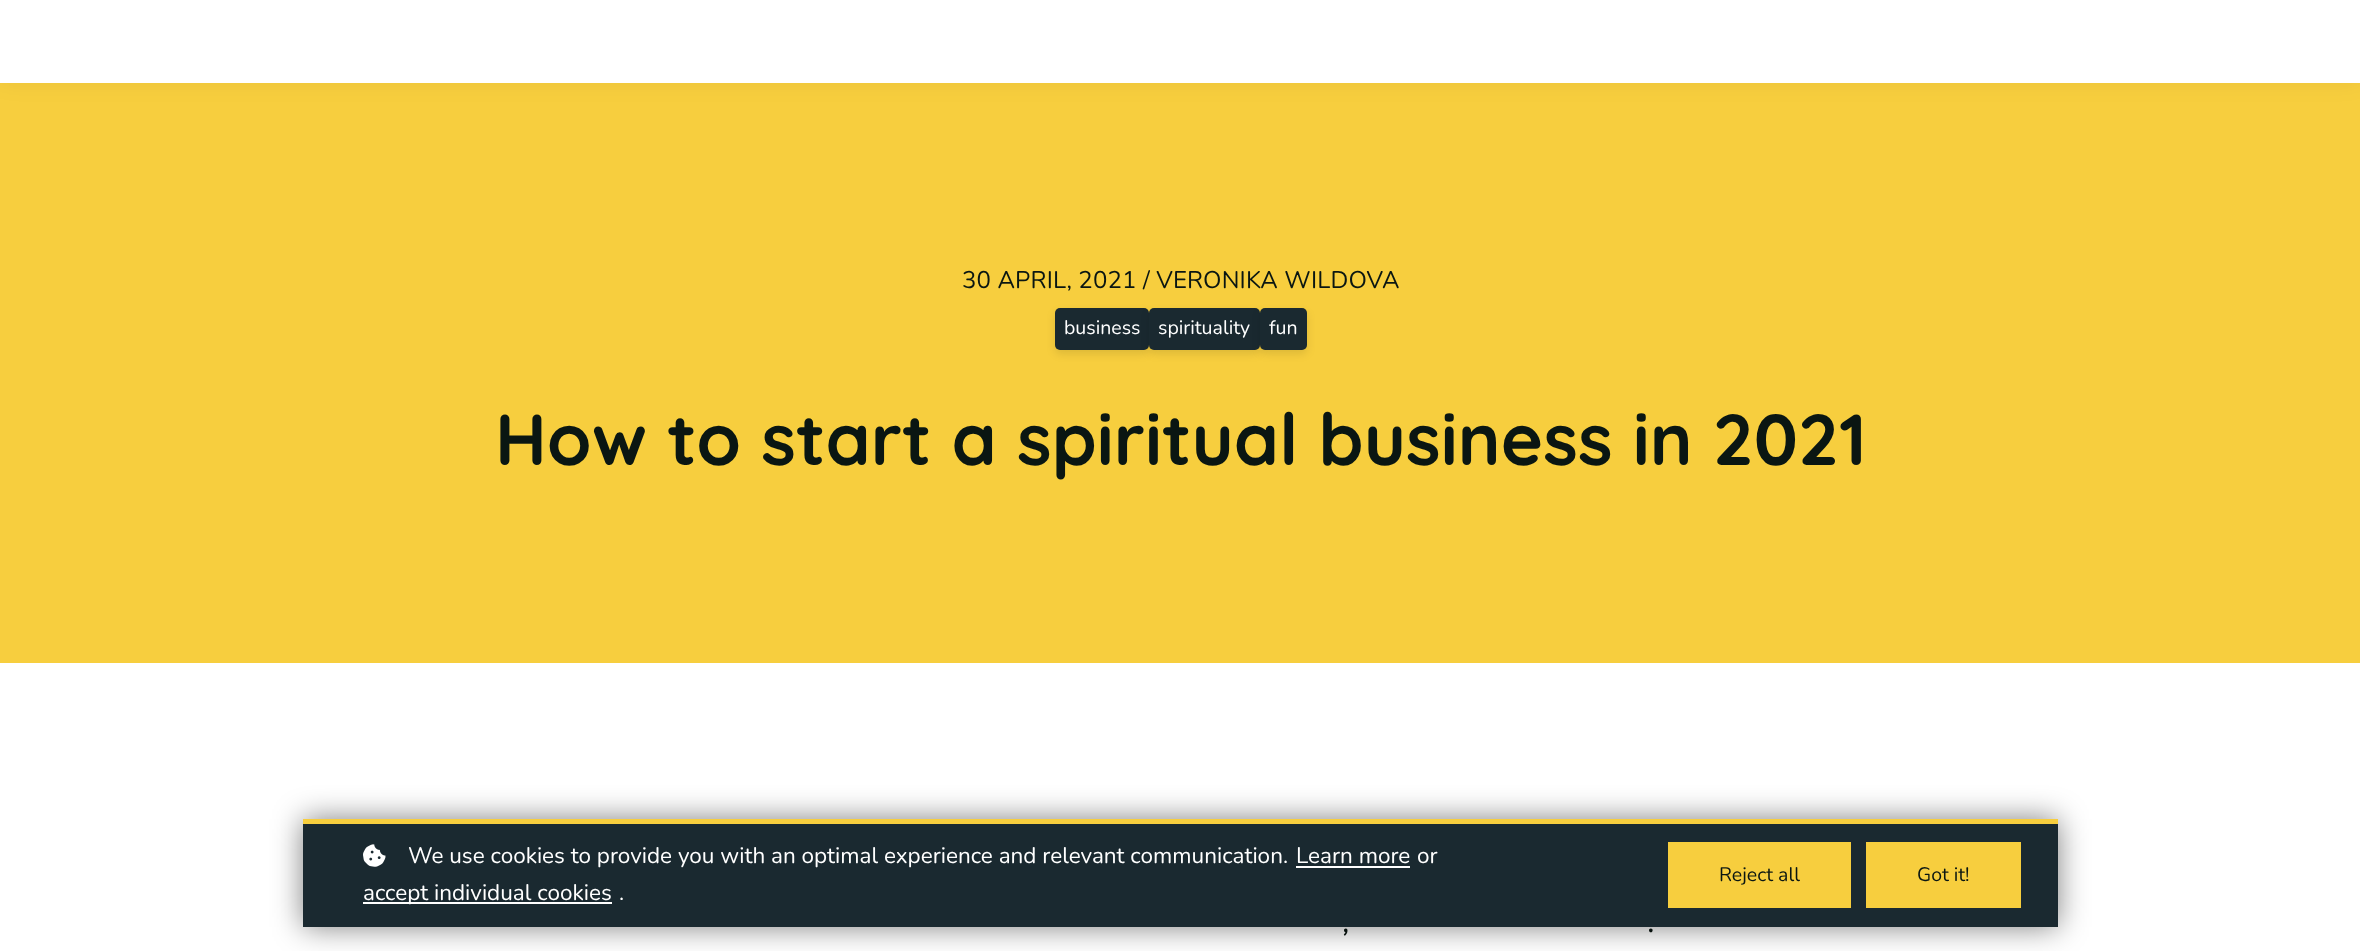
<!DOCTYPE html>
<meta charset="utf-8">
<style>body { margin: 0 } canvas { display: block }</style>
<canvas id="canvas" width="2360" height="951"></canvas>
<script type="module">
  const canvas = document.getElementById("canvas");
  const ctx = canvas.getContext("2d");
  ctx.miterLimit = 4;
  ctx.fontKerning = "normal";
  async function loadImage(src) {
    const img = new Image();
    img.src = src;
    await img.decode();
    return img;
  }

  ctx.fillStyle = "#ffffff";
  ctx.fillRect(0, 0, 2360, 951);
  ctx.fillStyle = "#f7ce3e";
  ctx.fillRect(0, 83, 2360, 580);
  ctx.fillStyle = "rgba(0, 0, 0, 0.05)";
  ctx.filter = "blur(11px)";
  ctx.beginPath();
  ctx.rect(0, 0, 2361, 83);
  ctx.fill();
  ctx.filter = "none";
  ctx.fillStyle = "#ffffff";
  ctx.fillRect(0, 0, 2360, 83);
  ctx.letterSpacing = "0.15px";
  ctx.font = "24px Nunito";
  ctx.fillStyle = "#0a1612";
  ctx.fillText("30 APRIL, 2021 / VERONIKA WILDOVA", 962, 288);
  ctx.fillStyle = "rgba(0, 0, 0, 0.1)";
  ctx.filter = "blur(4px)";
  ctx.beginPath();
  ctx.roundRect(1055, 312, 94, 42, 5);
  ctx.fill();
  ctx.filter = "none";
  ctx.fillStyle = "#1a2930";
  ctx.beginPath();
  ctx.roundRect(1055, 308, 94, 42, 5);
  ctx.fill();
  ctx.letterSpacing = "0px";
  ctx.font = "19.5px Nunito";
  ctx.fillStyle = "#ffffff";
  ctx.fillText("business", 1064, 334);
  ctx.fillStyle = "rgba(0, 0, 0, 0.1)";
  ctx.filter = "blur(4px)";
  ctx.beginPath();
  ctx.roundRect(1149, 312, 111, 42, 5);
  ctx.fill();
  ctx.filter = "none";
  ctx.fillStyle = "#1a2930";
  ctx.beginPath();
  ctx.roundRect(1149, 308, 111, 42, 5);
  ctx.fill();
  ctx.fillStyle = "#ffffff";
  ctx.fillText("spirituality", 1158, 334);
  ctx.fillStyle = "rgba(0, 0, 0, 0.1)";
  ctx.filter = "blur(4px)";
  ctx.beginPath();
  ctx.roundRect(1260, 312, 47, 42, 5);
  ctx.fill();
  ctx.filter = "none";
  ctx.fillStyle = "#1a2930";
  ctx.beginPath();
  ctx.roundRect(1260, 308, 47, 42, 5);
  ctx.fill();
  ctx.fillStyle = "#ffffff";
  ctx.fillText("fun", 1269, 334);
  ctx.font = "bold 72px Quicksand";
  ctx.fillStyle = "#0a1612";
  ctx.fillText("How to start a spiritual business in 2021", 495, 465);
  ctx.font = "italic 33px Nunito";
  ctx.fillText(",", 1343, 932);
  ctx.fillText(".", 1648, 932);
  ctx.fillStyle = "rgba(0, 0, 0, 0.5)";
  ctx.filter = "blur(15px)";
  ctx.beginPath();
  ctx.rect(303, 819, 1755, 108);
  ctx.fill();
  ctx.filter = "none";
  ctx.fillStyle = "#1a2930";
  ctx.fillRect(303, 824, 1755, 103);
  ctx.fillStyle = "#f7ce3e";
  ctx.fillRect(303, 819, 1755, 5);
  ctx.drawImage(await loadImage("img1.png"), 363, 844, 23, 23);
  ctx.font = "22.5px Nunito";
  ctx.fillStyle = "#ffffff";
  ctx.fillText("We use cookies to provide you with an optimal experience and relevant communication.", 408, 863);
  ctx.fillText("Learn more", 1296, 863);
  ctx.fillRect(1296, 866, 114, 2);
  ctx.fillText("or", 1417, 863);
  ctx.fillRect(363, 902, 249, 2);
  ctx.fillText("accept individual cookies", 363, 900);
  ctx.fillText(".", 619, 900);
  ctx.fillStyle = "#f7ce3e";
  ctx.fillRect(1668, 842, 183, 66);
  ctx.font = "19.5px Nunito";
  ctx.fillStyle = "#0a1612";
  ctx.fillText("Reject all", 1719, 881);
  ctx.fillStyle = "#f7ce3e";
  ctx.fillRect(1866, 842, 155, 66);
  ctx.fillStyle = "#0a1612";
  ctx.fillText("Got it!", 1917, 881);
</script>
